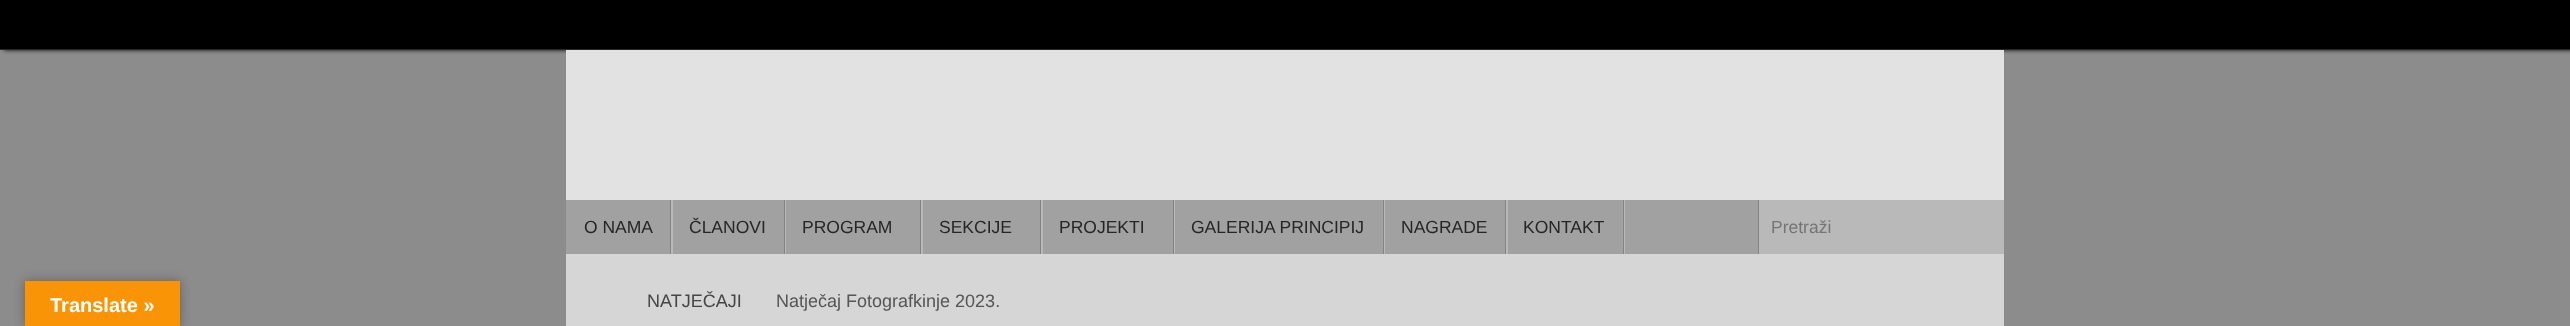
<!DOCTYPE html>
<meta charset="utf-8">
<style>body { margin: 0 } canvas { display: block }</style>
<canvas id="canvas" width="2570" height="326"></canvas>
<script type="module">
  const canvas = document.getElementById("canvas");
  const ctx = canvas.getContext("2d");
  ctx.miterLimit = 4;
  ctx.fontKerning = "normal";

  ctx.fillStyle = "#8c8c8c";
  ctx.fillRect(0, 0, 2570, 326);
  ctx.fillStyle = "rgba(0, 0, 0, 0.3)";
  ctx.filter = "blur(5.5px)";
  ctx.beginPath();
  ctx.rect(25, 281, 155, 45);
  ctx.fill();
  ctx.filter = "none";
  ctx.fillStyle = "#f89406";
  ctx.fillRect(25, 281, 155, 45);
  ctx.font = "bold 20px Liberation Sans";
  ctx.fillStyle = "#ffffff";
  ctx.fillText("Translate »", 50, 312);
  ctx.fillStyle = "#000000";
  ctx.filter = "blur(2px)";
  ctx.beginPath();
  ctx.rect(4, 0, 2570, 50);
  ctx.fill();
  ctx.filter = "none";
  ctx.fillRect(0, 0, 2570, 49);
  ctx.fillStyle = "#282828";
  ctx.fillRect(0, 49, 2570, 1);
  ctx.fillStyle = "#e2e2e2";
  ctx.fillRect(566, 50, 1438, 150);
  ctx.fillStyle = "#a1a1a1";
  ctx.fillRect(566, 200, 1192, 54);
  ctx.fillStyle = "#b9b9b9";
  ctx.beginPath();
  ctx.moveTo(568, 254);
  ctx.lineTo(673, 254);
  ctx.lineTo(673, 200);
  ctx.lineTo(671, 200);
  ctx.lineTo(671, 254);
  ctx.closePath();
  ctx.fill();
  ctx.fillStyle = "#838383";
  ctx.fillRect(670, 200, 1, 54);
  ctx.font = "17.5px Liberation Sans";
  ctx.fillStyle = "#262626";
  ctx.fillText("O NAMA", 584, 233);
  ctx.fillStyle = "#b9b9b9";
  ctx.beginPath();
  ctx.moveTo(673, 254);
  ctx.lineTo(786, 254);
  ctx.lineTo(786, 200);
  ctx.lineTo(785, 200);
  ctx.lineTo(785, 254);
  ctx.closePath();
  ctx.fill();
  ctx.fillStyle = "#838383";
  ctx.fillRect(784, 200, 1, 54);
  ctx.fillStyle = "#262626";
  ctx.fillText("ČLANOVI", 689, 233);
  ctx.fillStyle = "#b9b9b9";
  ctx.beginPath();
  ctx.moveTo(786, 254);
  ctx.lineTo(923, 254);
  ctx.lineTo(923, 200);
  ctx.lineTo(921, 200);
  ctx.lineTo(921, 254);
  ctx.closePath();
  ctx.fill();
  ctx.fillStyle = "#838383";
  ctx.fillRect(920, 200, 1, 54);
  ctx.fillStyle = "#262626";
  ctx.fillText("PROGRAM", 802, 233);
  ctx.fillStyle = "#b9b9b9";
  ctx.beginPath();
  ctx.moveTo(923, 254);
  ctx.lineTo(1043, 254);
  ctx.lineTo(1043, 200);
  ctx.lineTo(1041, 200);
  ctx.lineTo(1041, 254);
  ctx.closePath();
  ctx.fill();
  ctx.fillStyle = "#838383";
  ctx.fillRect(1040, 200, 1, 54);
  ctx.fillStyle = "#262626";
  ctx.fillText("SEKCIJE", 939, 233);
  ctx.fillStyle = "#b9b9b9";
  ctx.beginPath();
  ctx.moveTo(1043, 254);
  ctx.lineTo(1175, 254);
  ctx.lineTo(1175, 200);
  ctx.lineTo(1174, 200);
  ctx.lineTo(1174, 254);
  ctx.closePath();
  ctx.fill();
  ctx.fillStyle = "#838383";
  ctx.fillRect(1173, 200, 1, 54);
  ctx.fillStyle = "#262626";
  ctx.fillText("PROJEKTI", 1059, 233);
  ctx.fillStyle = "#b9b9b9";
  ctx.beginPath();
  ctx.moveTo(1175, 254);
  ctx.lineTo(1385, 254);
  ctx.lineTo(1385, 200);
  ctx.lineTo(1384, 200);
  ctx.lineTo(1384, 254);
  ctx.closePath();
  ctx.fill();
  ctx.fillStyle = "#838383";
  ctx.fillRect(1383, 200, 1, 54);
  ctx.fillStyle = "#262626";
  ctx.fillText("GALERIJA PRINCIPIJ", 1191, 233);
  ctx.fillStyle = "#b9b9b9";
  ctx.beginPath();
  ctx.moveTo(1385, 254);
  ctx.lineTo(1508, 254);
  ctx.lineTo(1508, 200);
  ctx.lineTo(1506, 200);
  ctx.lineTo(1506, 254);
  ctx.closePath();
  ctx.fill();
  ctx.fillStyle = "#838383";
  ctx.fillRect(1505, 200, 1, 54);
  ctx.fillStyle = "#262626";
  ctx.fillText("NAGRADE", 1401, 233);
  ctx.fillStyle = "#b9b9b9";
  ctx.beginPath();
  ctx.moveTo(1508, 254);
  ctx.lineTo(1625, 254);
  ctx.lineTo(1625, 200);
  ctx.lineTo(1624, 200);
  ctx.lineTo(1624, 254);
  ctx.closePath();
  ctx.fill();
  ctx.fillStyle = "#838383";
  ctx.fillRect(1623, 200, 1, 54);
  ctx.fillStyle = "#262626";
  ctx.fillText("KONTAKT", 1523, 233);
  ctx.fillStyle = "#b9b9b9";
  ctx.fillRect(1759, 200, 245, 54);
  ctx.fillStyle = "#838383";
  ctx.fillRect(1758, 200, 1, 54);
  ctx.fillStyle = "#757575";
  ctx.fillText("Pretraži", 1771, 233);
  ctx.fillStyle = "#d6d6d6";
  ctx.fillRect(566, 254, 1438, 72);
  ctx.font = "18px Liberation Sans";
  ctx.fillStyle = "#464646";
  ctx.fillText("NATJEČAJI", 647, 307);
  ctx.fillStyle = "#565656";
  ctx.fillText("Natječaj Fotografkinje 2023.", 776, 307);
</script>
